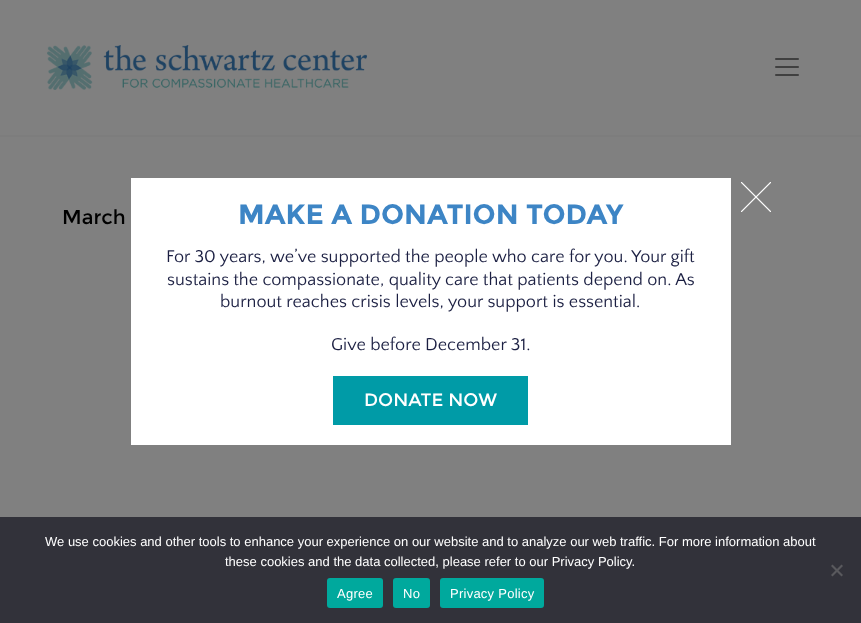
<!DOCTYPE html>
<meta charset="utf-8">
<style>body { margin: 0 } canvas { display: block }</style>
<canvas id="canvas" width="861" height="623"></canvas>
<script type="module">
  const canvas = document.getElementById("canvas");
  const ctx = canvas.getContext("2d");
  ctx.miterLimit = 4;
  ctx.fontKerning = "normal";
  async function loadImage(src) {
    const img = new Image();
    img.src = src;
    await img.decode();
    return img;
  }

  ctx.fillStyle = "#808080";
  ctx.fillRect(0, 0, 861, 623);
  ctx.fillStyle = "#7d7d7d";
  ctx.fillRect(0, 135, 861, 2);
  ctx.drawImage(await loadImage("img1.png"), 47, 45, 320, 45);
  ctx.drawImage(await loadImage("img2.png"), 775, 58, 24, 18);
  ctx.font = "20px Montserrat";
  ctx.fillStyle = "#000000";
  ctx.fillText("March", 62, 224);
  ctx.fillStyle = "#ffffff";
  ctx.fillRect(131, 178, 600, 267);
  ctx.drawImage(await loadImage("img3.png"), 741, 182, 30, 30);
  ctx.font = "bold 28px Montserrat";
  ctx.fillStyle = "#3d85c5";
  ctx.fillText("MAKE A DONATION TODAY", 238, 224);
  ctx.font = "18px Quattrocento Sans";
  ctx.fillStyle = "#1b1f42";
  ctx.fillText("For 30 years, we’ve supported the people who care for you. Your gift", 166, 262);
  ctx.fillText("sustains the compassionate, quality care that patients depend on. As", 167, 285);
  ctx.fillText("burnout reaches crisis levels, your support is essential.", 220, 307);
  ctx.fillText("Give before December 31.", 331, 350);
  ctx.fillStyle = "#009ba7";
  ctx.fillRect(333, 376, 195, 49);
  ctx.font = "18px Montserrat";
  ctx.fillStyle = "#ffffff";
  ctx.fillText("DONATE NOW", 364, 406);
  ctx.fillStyle = "#32323a";
  ctx.fillRect(0, 517, 861, 106);
  ctx.font = "13px Liberation Sans";
  ctx.fillStyle = "#ffffff";
  ctx.fillText("We use cookies and other tools to enhance your experience on our website and to analyze our web traffic. For more information about", 45, 546);
  ctx.fillText("these cookies and the data collected, please refer to our Privacy Policy.", 225, 566);
  ctx.fillStyle = "#59595d";
  ctx.beginPath();
  ctx.moveTo(841.5, 564.5);
  ctx.lineTo(843, 566);
  ctx.lineTo(832.5, 576.5);
  ctx.lineTo(831, 575);
  ctx.closePath();
  ctx.fill();
  ctx.beginPath();
  ctx.moveTo(831, 566);
  ctx.lineTo(832.5, 564.5);
  ctx.lineTo(843, 575);
  ctx.lineTo(841.5, 576.5);
  ctx.closePath();
  ctx.fill();
  ctx.fillStyle = "#00a99d";
  ctx.beginPath();
  ctx.roundRect(327, 578, 56, 30, 3);
  ctx.fill();
  ctx.letterSpacing = "0.25px";
  ctx.fillStyle = "#ffffff";
  ctx.fillText("Agree", 337, 598);
  ctx.fillStyle = "#00a99d";
  ctx.beginPath();
  ctx.roundRect(393, 578, 37, 30, 3);
  ctx.fill();
  ctx.fillStyle = "#ffffff";
  ctx.fillText("No", 403, 598);
  ctx.fillStyle = "#00a99d";
  ctx.beginPath();
  ctx.roundRect(440, 578, 104, 30, 3);
  ctx.fill();
  ctx.fillStyle = "#ffffff";
  ctx.fillText("Privacy Policy", 450, 598);
</script>
